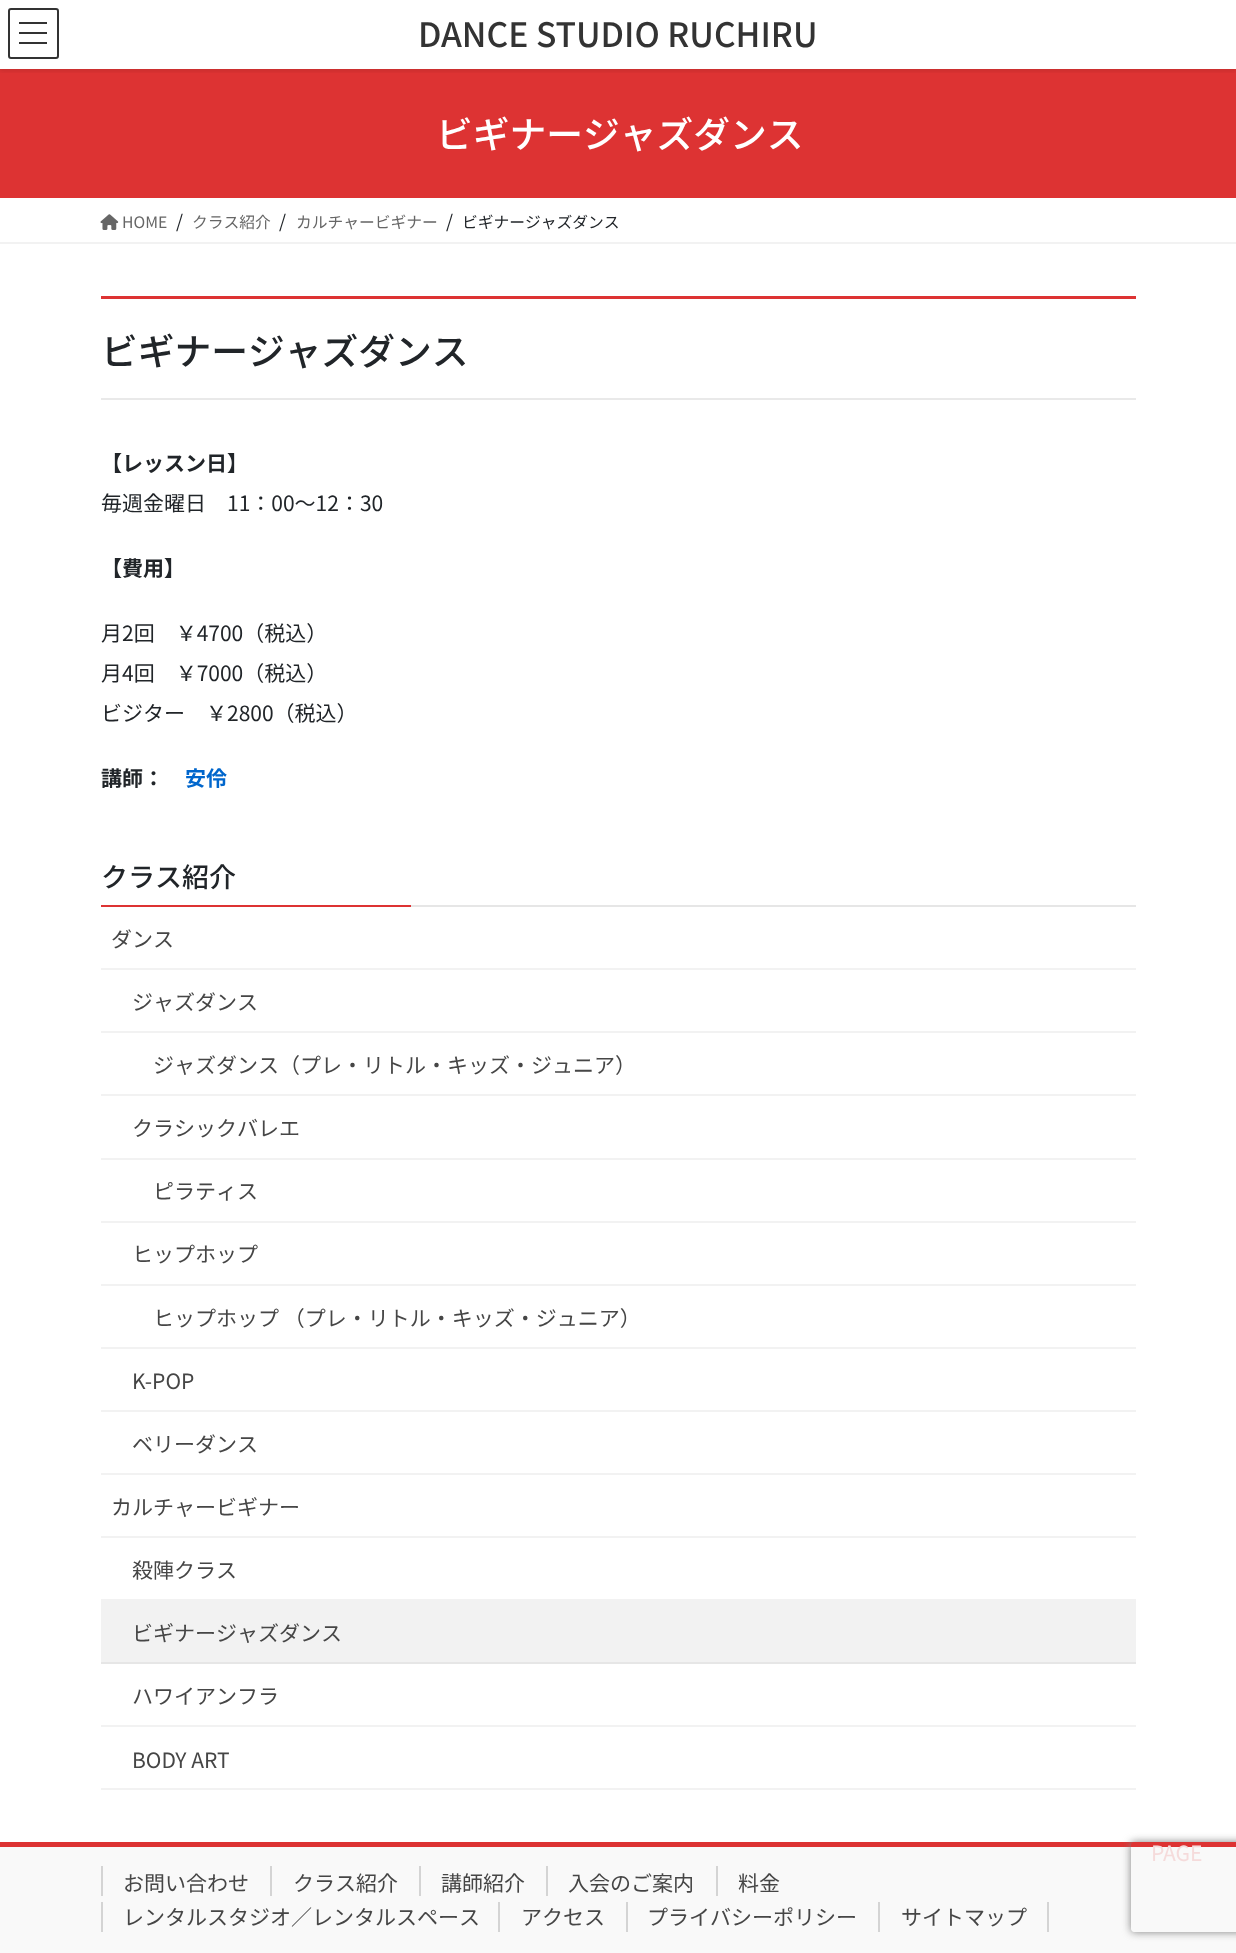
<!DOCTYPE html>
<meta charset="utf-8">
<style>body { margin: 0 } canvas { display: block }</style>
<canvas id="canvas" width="1236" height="1953"></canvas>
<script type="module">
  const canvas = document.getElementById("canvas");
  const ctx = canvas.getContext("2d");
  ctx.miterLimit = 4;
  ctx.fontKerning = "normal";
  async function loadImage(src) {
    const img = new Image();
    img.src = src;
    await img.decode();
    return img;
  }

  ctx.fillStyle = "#ffffff";
  ctx.fillRect(0, 0, 1236, 1953);
  ctx.fillStyle = "#dd3333";
  ctx.fillRect(0, 69, 1236, 129);
  ctx.save();
  ctx.beginPath();
  ctx.rect(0, 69, 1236, 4);
  ctx.clip();
  ctx.fillStyle = "rgba(0, 0, 0, 0.1)";
  ctx.filter = "blur(2px)";
  ctx.beginPath();
  ctx.rect(0, 2, 1236, 69);
  ctx.fill();
  ctx.filter = "none";
  ctx.restore();
  ctx.fillStyle = "#333333";
  ctx.fillRect(19, 22, 28, 2);
  ctx.fillRect(19, 32, 28, 2);
  ctx.fillRect(19, 42, 28, 2);
  ctx.beginPath();
  ctx.roundRect(9, 9, 49, 49, 2);
  ctx.strokeStyle = "#333333";
  ctx.lineWidth = 2;
  ctx.stroke();
  ctx.font = "500 33.6px Noto Sans JP";
  ctx.fillText("DANCE STUDIO RUCHIRU", 418, 47);
  ctx.font = "500 36.75px Noto Sans JP";
  ctx.fillStyle = "#ffffff";
  ctx.fillText("ビギナージャズダンス", 436, 148);
  ctx.fillStyle = "#f2f2f2";
  ctx.fillRect(0, 242, 1236, 2);
  ctx.drawImage(await loadImage("img1.png"), 100, 214, 19, 16);
  ctx.font = "15.75px Noto Sans JP";
  ctx.fillStyle = "#666666";
  ctx.fillText("HOME", 122, 228);
  ctx.font = "18px Noto Sans JP";
  ctx.fillStyle = "#212529";
  ctx.fillText("/", 176, 228);
  ctx.font = "15.75px Noto Sans JP";
  ctx.fillStyle = "#666666";
  ctx.fillText("クラス紹介", 192, 228);
  ctx.font = "18px Noto Sans JP";
  ctx.fillStyle = "#212529";
  ctx.fillText("/", 279, 228);
  ctx.font = "15.75px Noto Sans JP";
  ctx.fillStyle = "#666666";
  ctx.fillText("カルチャービギナー", 296, 228);
  ctx.font = "18px Noto Sans JP";
  ctx.fillStyle = "#212529";
  ctx.fillText("/", 446, 228);
  ctx.font = "15.75px Noto Sans JP";
  ctx.fillText("ビギナージャズダンス", 462, 228);
  ctx.fillStyle = "#dd3333";
  ctx.fillRect(101, 296, 1035, 3);
  ctx.fillStyle = "#e9e9e9";
  ctx.fillRect(101, 398, 1035, 2);
  ctx.font = "500 36.75px Noto Sans JP";
  ctx.fillStyle = "#212529";
  ctx.fillText("ビギナージャズダンス", 101, 365);
  ctx.font = "bold 21px Noto Sans JP";
  ctx.fillText("【レッスン日】", 101, 471);
  ctx.font = "21px Noto Sans JP";
  ctx.fillText("毎週金曜日　11：00～12：30", 101, 511);
  ctx.font = "bold 21px Noto Sans JP";
  ctx.fillText("【費用】", 101, 576);
  ctx.font = "21px Noto Sans JP";
  ctx.fillText("月2回　￥4700（税込）", 101, 641);
  ctx.fillText("月4回　￥7000（税込）", 101, 681);
  ctx.fillText("ビジター　￥2800（税込）", 101, 721);
  ctx.font = "bold 21px Noto Sans JP";
  ctx.fillText("講師：", 101, 786);
  ctx.fillStyle = "#0066cc";
  ctx.fillText("安伶", 185, 786);
  ctx.fillStyle = "#e6e6e6";
  ctx.fillRect(411, 905, 725, 2);
  ctx.font = "500 27px Noto Sans JP";
  ctx.fillStyle = "#212529";
  ctx.fillText("クラス紹介", 101, 887);
  ctx.fillStyle = "#dd3333";
  ctx.fillRect(101, 905, 310, 2);
  ctx.fillStyle = "#f2f2f2";
  ctx.fillRect(101, 968, 1035, 2);
  ctx.font = "21px Noto Sans JP";
  ctx.fillStyle = "#464646";
  ctx.fillText("ダンス", 111, 947);
  ctx.fillStyle = "#f2f2f2";
  ctx.fillRect(101, 1031, 1035, 2);
  ctx.fillStyle = "#464646";
  ctx.fillText("ジャズダンス", 132, 1010);
  ctx.fillStyle = "#f2f2f2";
  ctx.fillRect(101, 1094, 1035, 2);
  ctx.fillStyle = "#464646";
  ctx.fillText("ジャズダンス（プレ・リトル・キッズ・ジュニア）", 153, 1073);
  ctx.fillStyle = "#f2f2f2";
  ctx.fillRect(101, 1158, 1035, 2);
  ctx.fillStyle = "#464646";
  ctx.fillText("クラシックバレエ", 132, 1136);
  ctx.fillStyle = "#f2f2f2";
  ctx.fillRect(101, 1221, 1035, 2);
  ctx.fillStyle = "#464646";
  ctx.fillText("ピラティス", 153, 1199);
  ctx.fillStyle = "#f2f2f2";
  ctx.fillRect(101, 1284, 1035, 2);
  ctx.fillStyle = "#464646";
  ctx.fillText("ヒップホップ", 132, 1262);
  ctx.fillStyle = "#f2f2f2";
  ctx.fillRect(101, 1347, 1035, 2);
  ctx.fillStyle = "#464646";
  ctx.fillText("ヒップホップ （プレ・リトル・キッズ・ジュニア）", 153, 1326);
  ctx.fillStyle = "#f2f2f2";
  ctx.fillRect(101, 1410, 1035, 2);
  ctx.fillStyle = "#464646";
  ctx.fillText("K-POP", 132, 1389);
  ctx.fillStyle = "#f2f2f2";
  ctx.fillRect(101, 1473, 1035, 2);
  ctx.fillStyle = "#464646";
  ctx.fillText("ベリーダンス", 132, 1452);
  ctx.fillStyle = "#f2f2f2";
  ctx.fillRect(101, 1536, 1035, 2);
  ctx.fillStyle = "#464646";
  ctx.fillText("カルチャービギナー", 111, 1515);
  ctx.fillStyle = "#f2f2f2";
  ctx.fillRect(101, 1599, 1035, 63);
  ctx.fillStyle = "#464646";
  ctx.fillText("殺陣クラス", 132, 1578);
  ctx.fillStyle = "#e6e6e6";
  ctx.fillRect(101, 1662, 1035, 2);
  ctx.fillStyle = "#464646";
  ctx.fillText("ビギナージャズダンス", 132, 1641);
  ctx.fillStyle = "#f2f2f2";
  ctx.fillRect(101, 1725, 1035, 2);
  ctx.fillStyle = "#464646";
  ctx.fillText("ハワイアンフラ", 132, 1704);
  ctx.fillStyle = "#f2f2f2";
  ctx.fillRect(101, 1788, 1035, 2);
  ctx.fillStyle = "#464646";
  ctx.fillText("BODY ART", 132, 1768);
  ctx.fillStyle = "#f9f9f9";
  ctx.fillRect(0, 1847, 1236, 106);
  ctx.fillStyle = "#dd3333";
  ctx.fillRect(0, 1842, 1236, 5);
  ctx.save();
  ctx.beginPath();
  ctx.moveTo(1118, 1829);
  ctx.lineTo(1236, 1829);
  ctx.lineTo(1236, 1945);
  ctx.lineTo(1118, 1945);
  ctx.closePath();
  ctx.moveTo(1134, 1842);
  ctx.lineTo(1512, 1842);
  ctx.bezierCurveTo(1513.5, 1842, 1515, 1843.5, 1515, 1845);
  ctx.lineTo(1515, 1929);
  ctx.bezierCurveTo(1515, 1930.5, 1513.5, 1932, 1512, 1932);
  ctx.lineTo(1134, 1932);
  ctx.bezierCurveTo(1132.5, 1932, 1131, 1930.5, 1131, 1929);
  ctx.lineTo(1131, 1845);
  ctx.bezierCurveTo(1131, 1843.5, 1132.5, 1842, 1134, 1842);
  ctx.closePath();
  ctx.clip("evenodd");
  ctx.fillStyle = "#808080";
  ctx.filter = "blur(4px)";
  ctx.beginPath();
  ctx.roundRect(1131, 1842, 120, 90, 3);
  ctx.fill();
  ctx.filter = "none";
  ctx.restore();
  ctx.fillStyle = "#f5dbdb";
  ctx.fillText("PAGE", 1151, 1861);
  ctx.fillStyle = "#464646";
  ctx.fillText("お問い合わせ", 123, 1891);
  ctx.fillStyle = "#d4d4d4";
  ctx.fillRect(101, 1866, 2, 30);
  ctx.fillStyle = "#464646";
  ctx.fillText("クラス紹介", 293, 1891);
  ctx.fillStyle = "#d4d4d4";
  ctx.fillRect(270, 1866, 2, 30);
  ctx.fillStyle = "#464646";
  ctx.fillText("講師紹介", 441, 1891);
  ctx.fillStyle = "#d4d4d4";
  ctx.fillRect(419, 1866, 2, 30);
  ctx.fillStyle = "#464646";
  ctx.fillText("入会のご案内", 568, 1891);
  ctx.fillStyle = "#d4d4d4";
  ctx.fillRect(546, 1866, 2, 30);
  ctx.fillStyle = "#464646";
  ctx.fillText("料金", 738, 1891);
  ctx.fillStyle = "#d4d4d4";
  ctx.fillRect(716, 1866, 2, 30);
  ctx.fillStyle = "#464646";
  ctx.fillText("レンタルスタジオ／レンタルスペース", 123, 1925);
  ctx.fillStyle = "#d4d4d4";
  ctx.fillRect(101, 1902, 2, 30);
  ctx.fillStyle = "#464646";
  ctx.fillText("アクセス", 521, 1925);
  ctx.fillStyle = "#d4d4d4";
  ctx.fillRect(498, 1902, 2, 30);
  ctx.fillStyle = "#464646";
  ctx.fillText("プライバシーポリシー", 647, 1925);
  ctx.fillStyle = "#d4d4d4";
  ctx.fillRect(626, 1902, 2, 30);
  ctx.fillStyle = "#464646";
  ctx.fillText("サイトマップ", 901, 1925);
  ctx.fillStyle = "#d4d4d4";
  ctx.fillRect(1047, 1902, 2, 30);
  ctx.fillRect(878, 1902, 2, 30);
</script>
